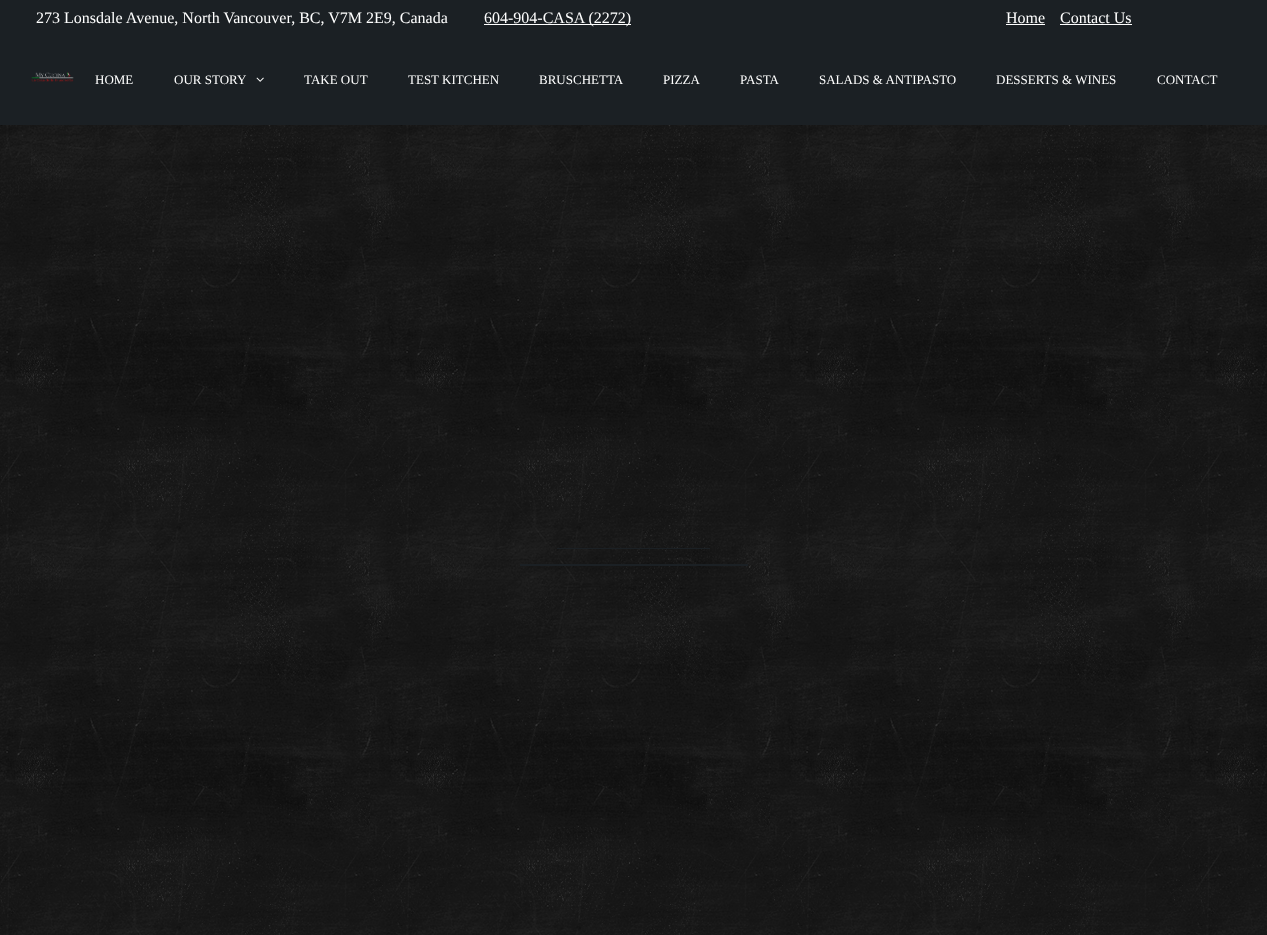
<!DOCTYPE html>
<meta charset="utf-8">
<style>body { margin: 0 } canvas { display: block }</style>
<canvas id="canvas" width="1267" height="935"></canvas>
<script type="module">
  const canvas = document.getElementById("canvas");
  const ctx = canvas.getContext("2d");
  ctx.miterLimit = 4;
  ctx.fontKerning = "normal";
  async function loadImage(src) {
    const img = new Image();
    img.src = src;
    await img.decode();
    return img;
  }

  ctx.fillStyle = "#1b2024";
  ctx.fillRect(0, 0, 1267, 935);
  ctx.font = "16px Liberation Serif";
  ctx.fillStyle = "#ffffff";
  ctx.fillText("273 Lonsdale Avenue, North Vancouver, BC, V7M 2E9, Canada", 36, 23);
  ctx.fillRect(484, 24, 147, 1);
  ctx.fillText("604-904-CASA (2272)", 484, 23);
  ctx.fillText("Home", 1006, 23);
  ctx.fillRect(1006, 24, 39, 1);
  ctx.fillText("Contact Us", 1060, 23);
  ctx.fillRect(1060, 24, 72, 1);
  ctx.drawImage(await loadImage("img1.png"), 31, 72, 43, 10);
  ctx.font = "13px Liberation Serif";
  ctx.fillText("HOME", 95, 84);
  ctx.fillText("OUR STORY", 174, 84);
  ctx.drawImage(await loadImage("img2.png"), 256, 77, 8, 5);
  ctx.fillText("TAKE OUT", 304, 84);
  ctx.fillText("TEST KITCHEN", 408, 84);
  ctx.fillText("BRUSCHETTA", 539, 84);
  ctx.fillText("PIZZA", 663, 84);
  ctx.fillText("PASTA", 740, 84);
  ctx.fillText("SALADS & ANTIPASTO", 819, 84);
  ctx.fillText("DESSERTS & WINES", 996, 84);
  ctx.fillText("CONTACT", 1157, 84);
  ctx.fillStyle = "#111111";
  ctx.fillRect(0, 125, 1267, 810);
  ctx.drawImage(await loadImage("img3.png"), 0, 125, 1267, 810);
  ctx.fillStyle = "#1b2024";
  ctx.fillRect(520, 564, 228, 2);
  ctx.fillRect(557, 548, 153, 1);
</script>
